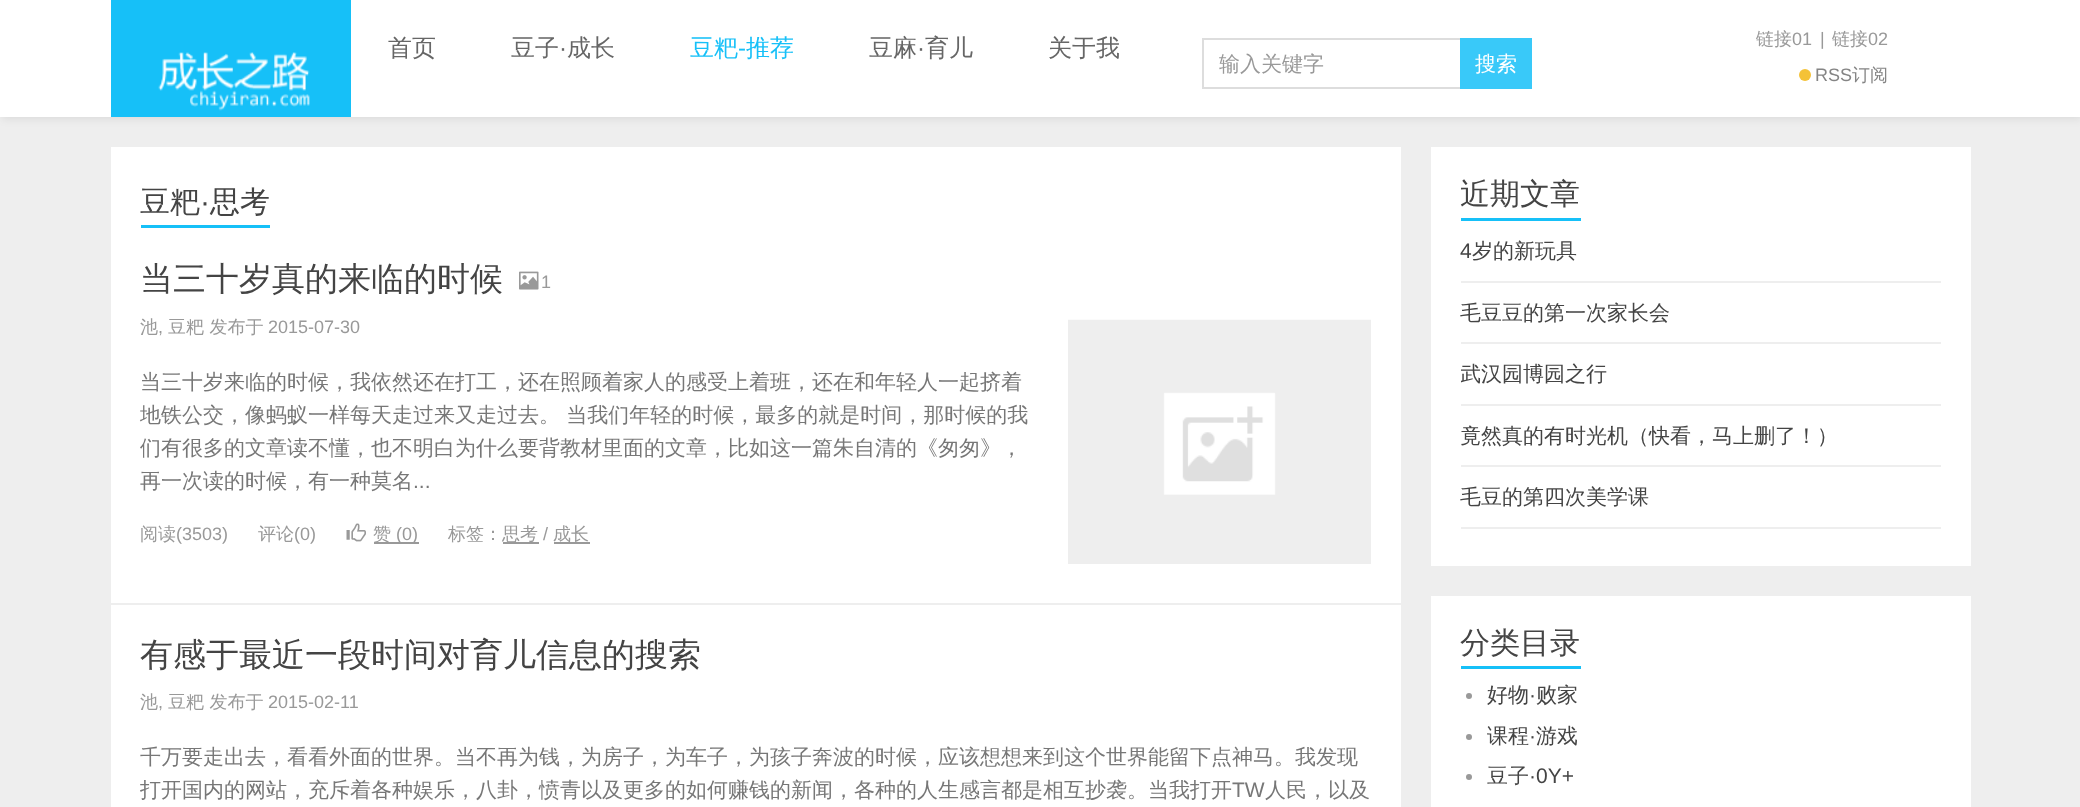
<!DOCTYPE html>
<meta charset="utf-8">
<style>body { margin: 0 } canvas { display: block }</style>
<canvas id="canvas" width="2080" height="807"></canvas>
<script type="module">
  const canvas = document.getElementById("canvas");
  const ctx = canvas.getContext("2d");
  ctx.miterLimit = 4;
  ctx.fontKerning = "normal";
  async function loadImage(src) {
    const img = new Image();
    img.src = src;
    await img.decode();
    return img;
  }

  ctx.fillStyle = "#eeeeee";
  ctx.fillRect(0, 0, 2080, 807);
  ctx.fillStyle = "rgba(0, 0, 0, 0.08)";
  ctx.filter = "blur(4px)";
  ctx.beginPath();
  ctx.rect(2, 2, 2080, 117);
  ctx.fill();
  ctx.filter = "none";
  ctx.fillStyle = "#ffffff";
  ctx.fillRect(0, 0, 2080, 117);
  ctx.fillStyle = "#16c0f8";
  ctx.fillRect(111, 0, 240, 117);
  ctx.drawImage(await loadImage("img1.png"), 158, 52, 152, 59);
  ctx.font = "500 24px WenQuanYi Zen Hei";
  ctx.fillStyle = "#666666";
  ctx.fillText("首页", 388, 56);
  ctx.fillText("豆子", 511, 56);
  ctx.font = "24px Liberation Sans";
  ctx.fillText("·", 559, 56);
  ctx.font = "500 24px WenQuanYi Zen Hei";
  ctx.fillText("成长", 567, 56);
  ctx.fillStyle = "#16c0f8";
  ctx.fillText("豆粑", 690, 56);
  ctx.font = "24px Liberation Sans";
  ctx.fillText("-", 738, 56);
  ctx.font = "500 24px WenQuanYi Zen Hei";
  ctx.fillText("推荐", 746, 56);
  ctx.fillStyle = "#666666";
  ctx.fillText("豆麻", 869, 56);
  ctx.font = "24px Liberation Sans";
  ctx.fillText("·", 917, 56);
  ctx.font = "500 24px WenQuanYi Zen Hei";
  ctx.fillText("育儿", 925, 56);
  ctx.fillText("关于我", 1048, 56);
  ctx.font = "500 18px WenQuanYi Zen Hei";
  ctx.fillStyle = "#999999";
  ctx.fillText("链接", 1756, 45);
  ctx.font = "18px Liberation Sans";
  ctx.fillText("01", 1792, 45);
  ctx.fillText("|", 1820, 45);
  ctx.font = "500 18px WenQuanYi Zen Hei";
  ctx.fillText("链接", 1832, 45);
  ctx.font = "18px Liberation Sans";
  ctx.fillText("02", 1868, 45);
  ctx.fillStyle = "#dddddd";
  ctx.fillRect(1202, 38, 258, 2);
  ctx.fillRect(1202, 87, 258, 2);
  ctx.fillRect(1202, 38, 2, 51);
  ctx.font = "500 21px WenQuanYi Zen Hei";
  ctx.fillStyle = "#999999";
  ctx.fillText("输入关键字", 1219, 71);
  ctx.fillStyle = "#39c9f9";
  ctx.fillRect(1460, 38, 72, 51);
  ctx.fillStyle = "#ffffff";
  ctx.fillText("搜索", 1475, 71);
  ctx.fillStyle = "#f4c237";
  ctx.beginPath();
  ctx.arc(1805, 75, 6, 0, Math.PI * 2);
  ctx.fill();
  ctx.font = "18px Liberation Sans";
  ctx.fillStyle = "#858585";
  ctx.fillText("RSS", 1815, 81);
  ctx.font = "500 18px WenQuanYi Zen Hei";
  ctx.fillText("订阅", 1852, 81);
  ctx.fillStyle = "#ffffff";
  ctx.fillRect(111, 147, 1290, 456);
  ctx.fillStyle = "#16c0f8";
  ctx.fillRect(141, 225, 129, 3);
  ctx.font = "500 30px WenQuanYi Zen Hei";
  ctx.fillStyle = "#444444";
  ctx.fillText("豆粑", 140, 212);
  ctx.font = "30px Liberation Sans";
  ctx.fillText("·", 200, 212);
  ctx.font = "500 30px WenQuanYi Zen Hei";
  ctx.fillText("思考", 210, 212);
  ctx.font = "500 33px WenQuanYi Zen Hei";
  ctx.fillText("当三十岁真的来临的时候", 140, 290);
  ctx.drawImage(await loadImage("img2.png"), 519, 271, 20, 19);
  ctx.font = "18px Liberation Sans";
  ctx.fillStyle = "#999999";
  ctx.fillText("1", 541, 288);
  ctx.font = "500 18px WenQuanYi Zen Hei";
  ctx.fillText("池", 140, 333);
  ctx.font = "18px Liberation Sans";
  ctx.fillText(",", 158, 333);
  ctx.font = "500 18px WenQuanYi Zen Hei";
  ctx.fillText("豆粑 发布于", 168, 333);
  ctx.font = "18px Liberation Sans";
  ctx.fillText("2015-07-30", 268, 333);
  ctx.drawImage(await loadImage("img3.png"), 1068, 319, 303, 245);
  ctx.font = "500 21px WenQuanYi Zen Hei";
  ctx.fillStyle = "#777777";
  ctx.fillText("当三十岁来临的时候，我依然还在打工，还在照顾着家人的感受上着班，还在和年轻人一起挤着", 140, 389);
  ctx.fillText("地铁公交，像蚂蚁一样每天走过来又走过去。 当我们年轻的时候，最多的就是时间，那时候的我", 140, 422);
  ctx.fillText("们有很多的文章读不懂，也不明白为什么要背教材里面的文章，比如这一篇朱自清的《匆匆》，", 140, 455);
  ctx.fillText("再一次读的时候，有一种莫名", 140, 488);
  ctx.font = "21px Liberation Sans";
  ctx.fillText("...", 413, 488);
  ctx.font = "500 18px WenQuanYi Zen Hei";
  ctx.fillStyle = "#999999";
  ctx.fillText("阅读", 140, 540);
  ctx.font = "18px Liberation Sans";
  ctx.fillText("(3503)", 176, 540);
  ctx.font = "500 18px WenQuanYi Zen Hei";
  ctx.fillText("评论", 258, 540);
  ctx.font = "18px Liberation Sans";
  ctx.fillText("(0)", 294, 540);
  ctx.drawImage(await loadImage("img4.png"), 346, 523, 20, 19);
  ctx.fillRect(374, 542, 28, 2);
  ctx.font = "500 18px WenQuanYi Zen Hei";
  ctx.fillText("赞", 373, 540);
  ctx.font = "18px Liberation Sans";
  ctx.fillText("(0", 396, 540);
  ctx.fillRect(402, 542, 17, 2);
  ctx.fillText(")", 412, 540);
  ctx.font = "500 18px WenQuanYi Zen Hei";
  ctx.fillText("标签：", 448, 540);
  ctx.fillRect(503, 542, 36, 2);
  ctx.fillText("思考", 502, 540);
  ctx.font = "18px Liberation Sans";
  ctx.fillText("/", 543, 540);
  ctx.fillRect(554, 542, 36, 2);
  ctx.font = "500 18px WenQuanYi Zen Hei";
  ctx.fillText("成长", 553, 540);
  ctx.fillStyle = "#ffffff";
  ctx.fillRect(111, 605, 1290, 202);
  ctx.font = "500 33px WenQuanYi Zen Hei";
  ctx.fillStyle = "#444444";
  ctx.fillText("有感于最近一段时间对育儿信息的搜索", 140, 666);
  ctx.font = "500 18px WenQuanYi Zen Hei";
  ctx.fillStyle = "#999999";
  ctx.fillText("池", 140, 708);
  ctx.font = "18px Liberation Sans";
  ctx.fillText(",", 158, 708);
  ctx.font = "500 18px WenQuanYi Zen Hei";
  ctx.fillText("豆粑 发布于", 168, 708);
  ctx.font = "18px Liberation Sans";
  ctx.fillText("2015-02-11", 268, 708);
  ctx.font = "500 21px WenQuanYi Zen Hei";
  ctx.fillStyle = "#777777";
  ctx.fillText("千万要走出去，看看外面的世界。当不再为钱，为房子，为车子，为孩子奔波的时候，应该想想来到这个世界能留下点神马。我发现", 140, 764);
  ctx.fillText("打开国内的网站，充斥着各种娱乐，八卦，愤青以及更多的如何赚钱的新闻，各种的人生感言都是相互抄袭。当我打开", 140, 797);
  ctx.font = "21px Liberation Sans";
  ctx.fillText("TW", 1232, 797);
  ctx.font = "500 21px WenQuanYi Zen Hei";
  ctx.fillText("人民，以及", 1265, 797);
  ctx.fillStyle = "#ffffff";
  ctx.fillRect(1431, 147, 540, 419);
  ctx.fillStyle = "#16c0f8";
  ctx.fillRect(1461, 218, 120, 3);
  ctx.font = "500 30px WenQuanYi Zen Hei";
  ctx.fillStyle = "#444444";
  ctx.fillText("近期文章", 1460, 204);
  ctx.fillStyle = "#eeeeee";
  ctx.fillRect(1461, 281, 480, 2);
  ctx.font = "21px Liberation Sans";
  ctx.fillStyle = "#444444";
  ctx.fillText("4", 1460, 258);
  ctx.font = "500 21px WenQuanYi Zen Hei";
  ctx.fillText("岁的新玩具", 1472, 258);
  ctx.fillStyle = "#eeeeee";
  ctx.fillRect(1461, 342, 480, 2);
  ctx.fillStyle = "#444444";
  ctx.fillText("毛豆豆的第一次家长会", 1460, 320);
  ctx.fillStyle = "#eeeeee";
  ctx.fillRect(1461, 404, 480, 2);
  ctx.save();
  ctx.beginPath();
  ctx.rect(1461, 344, 480, 60);
  ctx.clip();
  ctx.fillStyle = "#444444";
  ctx.fillText("武汉园博园之行", 1460, 381);
  ctx.restore();
  ctx.fillRect(1461, 465, 480, 2);
  ctx.fillStyle = "#444444";
  ctx.fillText("竟然真的有时光机（快看，马上删了！）", 1460, 443);
  ctx.fillStyle = "#eeeeee";
  ctx.fillRect(1461, 527, 480, 2);
  ctx.fillStyle = "#444444";
  ctx.fillText("毛豆的第四次美学课", 1460, 504);
  ctx.fillStyle = "#ffffff";
  ctx.fillRect(1431, 596, 540, 211);
  ctx.fillStyle = "#16c0f8";
  ctx.fillRect(1461, 666, 120, 3);
  ctx.font = "500 30px WenQuanYi Zen Hei";
  ctx.fillStyle = "#444444";
  ctx.fillText("分类目录", 1460, 653);
  ctx.fillStyle = "#999999";
  ctx.beginPath();
  ctx.arc(1469, 696, 3, 0, Math.PI * 2);
  ctx.fill();
  ctx.font = "500 21px WenQuanYi Zen Hei";
  ctx.fillStyle = "#444444";
  ctx.fillText("好物", 1487, 702);
  ctx.font = "21px Liberation Sans";
  ctx.fillText("·", 1529, 702);
  ctx.font = "500 21px WenQuanYi Zen Hei";
  ctx.fillText("败家", 1536, 702);
  ctx.fillStyle = "#999999";
  ctx.beginPath();
  ctx.arc(1469, 737, 3, 0, Math.PI * 2);
  ctx.fill();
  ctx.fillStyle = "#444444";
  ctx.fillText("课程", 1487, 743);
  ctx.font = "21px Liberation Sans";
  ctx.fillText("·", 1529, 743);
  ctx.font = "500 21px WenQuanYi Zen Hei";
  ctx.fillText("游戏", 1536, 743);
  ctx.fillStyle = "#999999";
  ctx.beginPath();
  ctx.arc(1469, 777, 3, 0, Math.PI * 2);
  ctx.fill();
  ctx.fillStyle = "#444444";
  ctx.fillText("豆子", 1487, 783);
  ctx.font = "21px Liberation Sans";
  ctx.fillText("·0Y+", 1529, 783);
</script>
